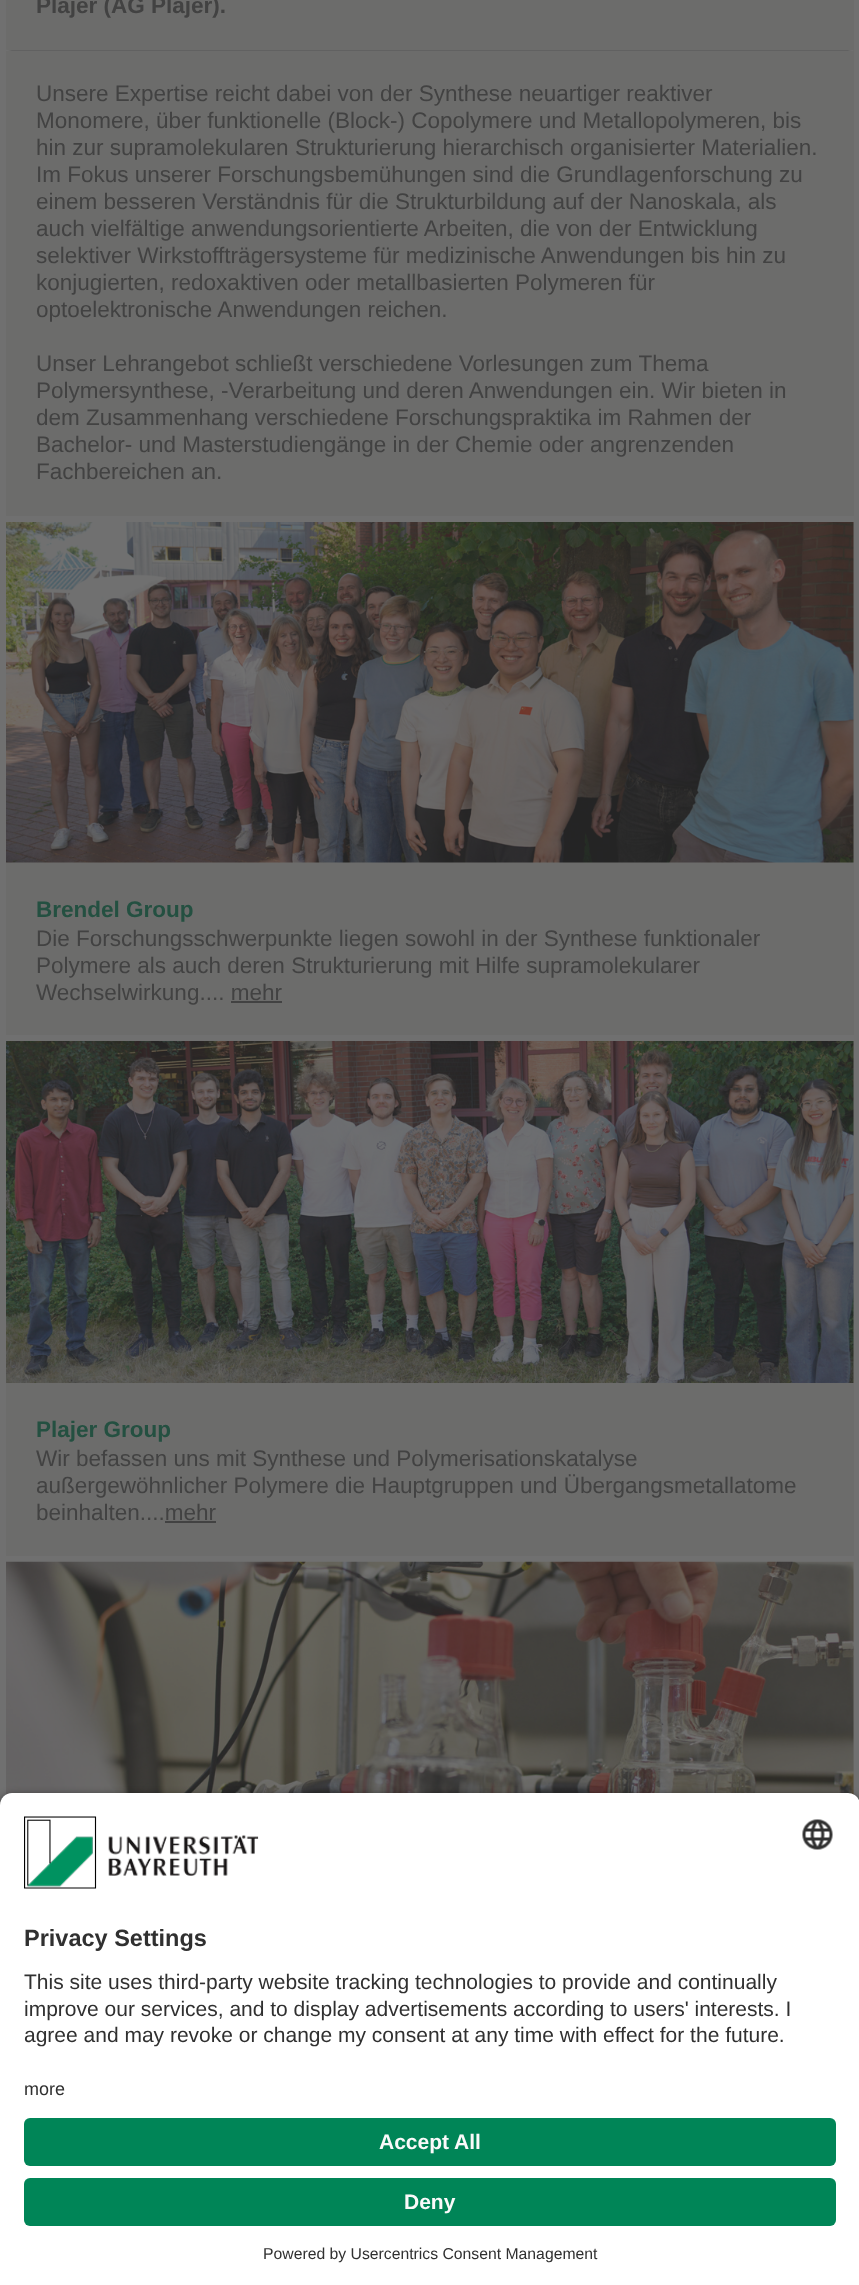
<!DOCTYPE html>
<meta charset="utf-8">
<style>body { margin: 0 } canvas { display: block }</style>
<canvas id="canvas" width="859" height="2285"></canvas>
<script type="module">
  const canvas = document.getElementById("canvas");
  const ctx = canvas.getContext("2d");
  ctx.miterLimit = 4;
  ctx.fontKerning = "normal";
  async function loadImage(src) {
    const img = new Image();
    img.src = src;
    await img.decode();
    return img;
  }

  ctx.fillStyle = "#707070";
  ctx.fillRect(0, 0, 859, 2285);
  ctx.fillStyle = "#6c6c6b";
  ctx.fillRect(6, 0, 848, 516);
  ctx.font = "bold 22.5px Liberation Sans";
  ctx.fillStyle = "#424242";
  ctx.fillText("Plajer (AG Plajer).", 36, 13);
  ctx.fillStyle = "#616161";
  ctx.beginPath();
  ctx.moveTo(6, 50);
  ctx.lineTo(854, 50);
  ctx.lineTo(848, 51);
  ctx.lineTo(12, 51);
  ctx.closePath();
  ctx.fill();
  ctx.fillStyle = "#707070";
  ctx.beginPath();
  ctx.moveTo(853.5, 49.5);
  ctx.lineTo(853.5, 51);
  ctx.lineTo(847.5, 51);
  ctx.closePath();
  ctx.fill();
  ctx.beginPath();
  ctx.moveTo(6, 51);
  ctx.lineTo(6, 49.5);
  ctx.lineTo(12, 51);
  ctx.closePath();
  ctx.fill();
  ctx.font = "22.5px Liberation Sans";
  ctx.fillStyle = "#424242";
  ctx.fillText("Unsere Expertise reicht dabei von der Synthese neuartiger reaktiver", 36, 101);
  ctx.fillText("Monomere, über funktionelle (Block-) Copolymere und Metallopolymeren, bis", 36, 128);
  ctx.fillText("hin zur supramolekularen Strukturierung hierarchisch organisierter Materialien.", 36, 155);
  ctx.fillText("Im Fokus unserer Forschungsbemühungen sind die Grundlagenforschung zu", 36, 182);
  ctx.fillText("einem besseren Verständnis für die Strukturbildung auf der Nanoskala, als", 36, 209);
  ctx.fillText("auch vielfältige anwendungsorientierte Arbeiten, die von der Entwicklung", 36, 236);
  ctx.fillText("selektiver Wirkstoffträgersysteme für medizinische Anwendungen bis hin zu", 36, 263);
  ctx.fillText("konjugierten, redoxaktiven oder metallbasierten Polymeren für", 36, 290);
  ctx.fillText("optoelektronische Anwendungen reichen.", 36, 317);
  ctx.fillText("Unser Lehrangebot schließt verschiedene Vorlesungen zum Thema", 36, 371);
  ctx.fillText("Polymersynthese, -Verarbeitung und deren Anwendungen ein. Wir bieten in", 36, 398);
  ctx.fillText("dem Zusammenhang verschiedene Forschungspraktika im Rahmen der", 36, 425);
  ctx.fillText("Bachelor- und Masterstudiengänge in der Chemie oder angrenzenden", 36, 452);
  ctx.fillText("Fachbereichen an.", 36, 479);
  ctx.fillStyle = "#6c6c6b";
  ctx.fillRect(6, 522, 848, 513);
  ctx.drawImage(await loadImage("img1.png"), 6, 522, 848, 341);
  ctx.font = "bold 22.5px Liberation Sans";
  ctx.fillStyle = "#245041";
  ctx.fillText("Brendel Group", 36, 917);
  ctx.font = "22.5px Liberation Sans";
  ctx.fillStyle = "#424242";
  ctx.fillText("Die Forschungsschwerpunkte liegen sowohl in der Synthese funktionaler", 36, 946);
  ctx.fillText("Polymere als auch deren Strukturierung mit Hilfe supramolekularer", 36, 973);
  ctx.fillText("Wechselwirkung.... mehr", 36, 1000);
  ctx.fillRect(231, 1001, 51, 2);
  ctx.fillStyle = "#6c6c6b";
  ctx.fillRect(6, 1041, 848, 515);
  ctx.drawImage(await loadImage("img2.png"), 6, 1041, 848, 342);
  ctx.font = "bold 22.5px Liberation Sans";
  ctx.fillStyle = "#245041";
  ctx.fillText("Plajer Group", 36, 1437);
  ctx.font = "22.5px Liberation Sans";
  ctx.fillStyle = "#424242";
  ctx.fillText("Wir befassen uns mit Synthese und Polymerisationskatalyse", 36, 1466);
  ctx.fillText("außergewöhnlicher Polymere die Hauptgruppen und Übergangsmetallatome", 36, 1493);
  ctx.fillText("beinhalten....mehr", 36, 1520);
  ctx.fillRect(165, 1521, 51, 2);
  ctx.fillStyle = "#6c6c6b";
  ctx.fillRect(853, 1562, 1, 233);
  ctx.drawImage(await loadImage("img3.png"), 6, 1561, 848, 234);
  ctx.fillStyle = "rgba(0, 0, 0, 0.8)";
  ctx.filter = "blur(5px)";
  ctx.beginPath();
  ctx.roundRect(0, 1797, 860, 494, 12);
  ctx.fill();
  ctx.filter = "none";
  ctx.fillStyle = "#ffffff";
  ctx.beginPath();
  ctx.moveTo(12, 1793);
  ctx.lineTo(848, 1793);
  ctx.bezierCurveTo(854.5, 1793, 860, 1798.5, 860, 1805);
  ctx.lineTo(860, 2079);
  ctx.lineTo(0, 2079);
  ctx.lineTo(0, 1805);
  ctx.bezierCurveTo(0, 1798.5, 5.5, 1793, 12, 1793);
  ctx.closePath();
  ctx.fill();
  ctx.drawImage(await loadImage("img4.png"), 24, 1816, 235, 73);
  ctx.drawImage(await loadImage("img5.png"), 802, 1819, 31, 31);
  ctx.font = "bold 23.5px Liberation Sans";
  ctx.fillStyle = "#303030";
  ctx.fillText("Privacy Settings", 24, 1946);
  ctx.font = "21px Liberation Sans";
  ctx.fillText("This site uses third-party website tracking technologies to provide and continually", 24, 1989);
  ctx.fillText("improve our services, and to display advertisements according to users' interests. I", 24, 2016);
  ctx.fillText("agree and may revoke or change my consent at any time with effect for the future.", 24, 2042);
  ctx.fillStyle = "#ffffff";
  ctx.fillRect(0, 2079, 859, 206);
  ctx.font = "18px Liberation Sans";
  ctx.fillStyle = "#303030";
  ctx.fillText("more", 24, 2095);
  ctx.fillStyle = "#008557";
  ctx.beginPath();
  ctx.roundRect(24, 2118, 812, 48, 6);
  ctx.fill();
  ctx.font = "bold 21px Liberation Sans";
  ctx.fillStyle = "#fafafa";
  ctx.fillText("Accept All", 379, 2149);
  ctx.fillStyle = "#008557";
  ctx.beginPath();
  ctx.roundRect(24, 2178, 812, 48, 6);
  ctx.fill();
  ctx.fillStyle = "#fafafa";
  ctx.fillText("Deny", 404, 2209);
  ctx.font = "15.75px Liberation Sans";
  ctx.fillStyle = "#303030";
  ctx.fillText("Powered by Usercentrics Consent Management", 263, 2259);
</script>
